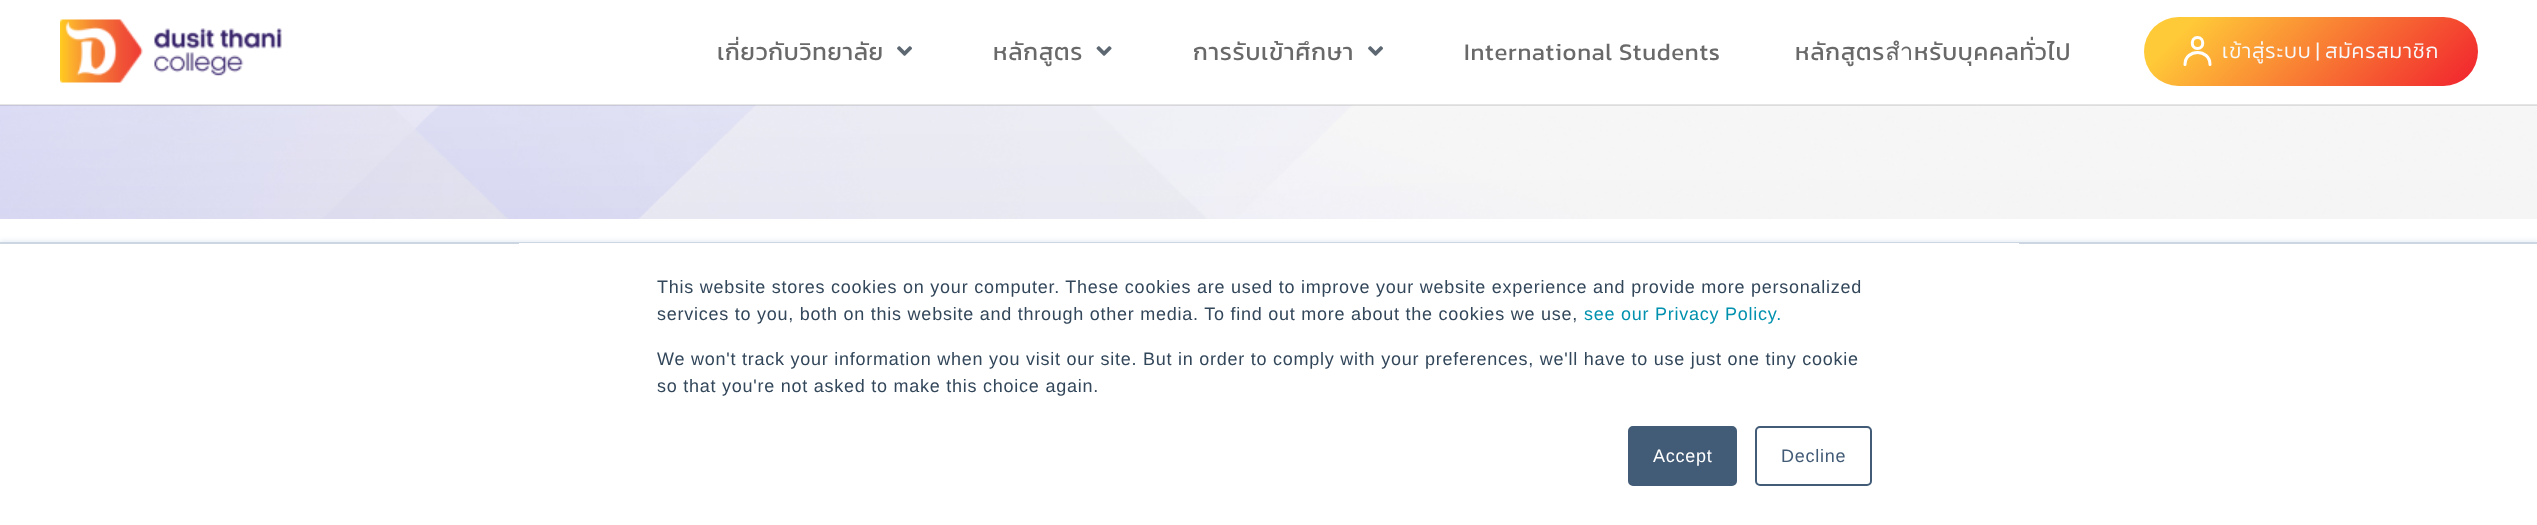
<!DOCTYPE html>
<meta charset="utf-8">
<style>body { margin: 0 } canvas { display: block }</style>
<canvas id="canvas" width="2537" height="525"></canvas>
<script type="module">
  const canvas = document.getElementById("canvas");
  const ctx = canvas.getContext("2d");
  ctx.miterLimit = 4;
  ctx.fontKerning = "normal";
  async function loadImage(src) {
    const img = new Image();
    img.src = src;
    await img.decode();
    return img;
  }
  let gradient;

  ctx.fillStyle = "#ffffff";
  ctx.fillRect(0, 0, 2537, 525);
  ctx.drawImage(await loadImage("img4.png"), 0, 105, 2537, 114);
  ctx.fillStyle = "rgba(0, 0, 0, 0.1)";
  ctx.fillRect(0, 104, 2537, 2);
  ctx.drawImage(await loadImage("img1.png"), 60, 19, 222, 64);
  ctx.letterSpacing = "0.75px";
  ctx.font = "24px Kanit";
  ctx.fillStyle = "#696969";
  ctx.fillText("เกี่ยวกับวิทยาลัย", 717, 60);
  ctx.drawImage(await loadImage("img2.png"), 897, 46, 15, 10);
  ctx.fillText("หลักสูตร", 993, 60);
  ctx.drawImage(await loadImage("img3.png"), 1096, 46, 16, 10);
  ctx.fillText("การรับเข้าศึกษา", 1193, 60);
  ctx.drawImage(await loadImage("img2.png"), 1368, 46, 15, 10);
  ctx.fillText("International Students", 1464, 60);
  ctx.fillText("หลักสูตรสำหรับบุคคลทั่วไป", 1795, 60);
  gradient = ctx.createLinearGradient(2210, -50, 2412, 152);
  gradient.addColorStop(0.13, "#ffca38");
  gradient.addColorStop(1, "#f1212e");
  ctx.fillStyle = gradient;
  ctx.beginPath();
  ctx.roundRect(2144, 17, 334, 69, 34.5);
  ctx.fill();
  ctx.beginPath();
  ctx.moveTo(2197.5, 48.5);
  ctx.bezierCurveTo(2204.5, 48.5, 2204.5, 37.5, 2197.5, 37.5);
  ctx.bezierCurveTo(2190.5, 37.5, 2190.5, 48.5, 2197.5, 48.5);
  ctx.closePath();
  ctx.moveTo(2210, 64.5);
  ctx.bezierCurveTo(2210, 48.5, 2185, 48.5, 2185, 64.5);
  ctx.strokeStyle = "#ffffff";
  ctx.lineWidth = 3;
  ctx.lineCap = "round";
  ctx.lineJoin = "round";
  ctx.stroke();
  ctx.wordSpacing = "-1px";
  ctx.font = "300 21px Kanit";
  ctx.fillStyle = "#f8f9fa";
  ctx.fillText("เข้าสู่ระบบ | สมัครสมาชิก", 2222, 58);
  ctx.fillStyle = "#eaf0f6";
  ctx.filter = "blur(2px)";
  ctx.beginPath();
  ctx.rect(0, 240, 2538, 284);
  ctx.fill();
  ctx.filter = "none";
  ctx.fillStyle = "#ffffff";
  ctx.fillRect(0, 244, 2537, 281);
  ctx.fillStyle = "#cbd6e2";
  ctx.fillRect(0, 242, 2537, 2);
  ctx.fillStyle = "#ffffff";
  ctx.fillRect(519, 243, 1500, 1);
  ctx.wordSpacing = "0px";
  ctx.font = "18px Liberation Sans";
  ctx.fillStyle = "#33475b";
  ctx.fillText("This website stores cookies on your computer. These cookies are used to improve your website experience and provide more personalized", 657, 293);
  ctx.fillText("services to you, both on this website and through other media. To find out more about the cookies we use,", 657, 320);
  ctx.fillStyle = "#0091ae";
  ctx.fillText("see our Privacy Policy.", 1584, 320);
  ctx.fillStyle = "#33475b";
  ctx.fillText("We won't track your information when you visit our site. But in order to comply with your preferences, we'll have to use just one tiny cookie", 657, 365);
  ctx.fillText("so that you're not asked to make this choice again.", 657, 392);
  ctx.fillStyle = "#425b76";
  ctx.beginPath();
  ctx.roundRect(1629, 427, 107, 58, 4);
  ctx.fill();
  ctx.strokeStyle = "#425b76";
  ctx.lineWidth = 2;
  ctx.lineJoin = "miter";
  ctx.stroke();
  ctx.fillStyle = "#ffffff";
  ctx.fillText("Accept", 1653, 462);
  ctx.beginPath();
  ctx.roundRect(1756, 427, 115, 58, 4);
  ctx.stroke();
  ctx.fillStyle = "#425b76";
  ctx.fillText("Decline", 1781, 462);
</script>
